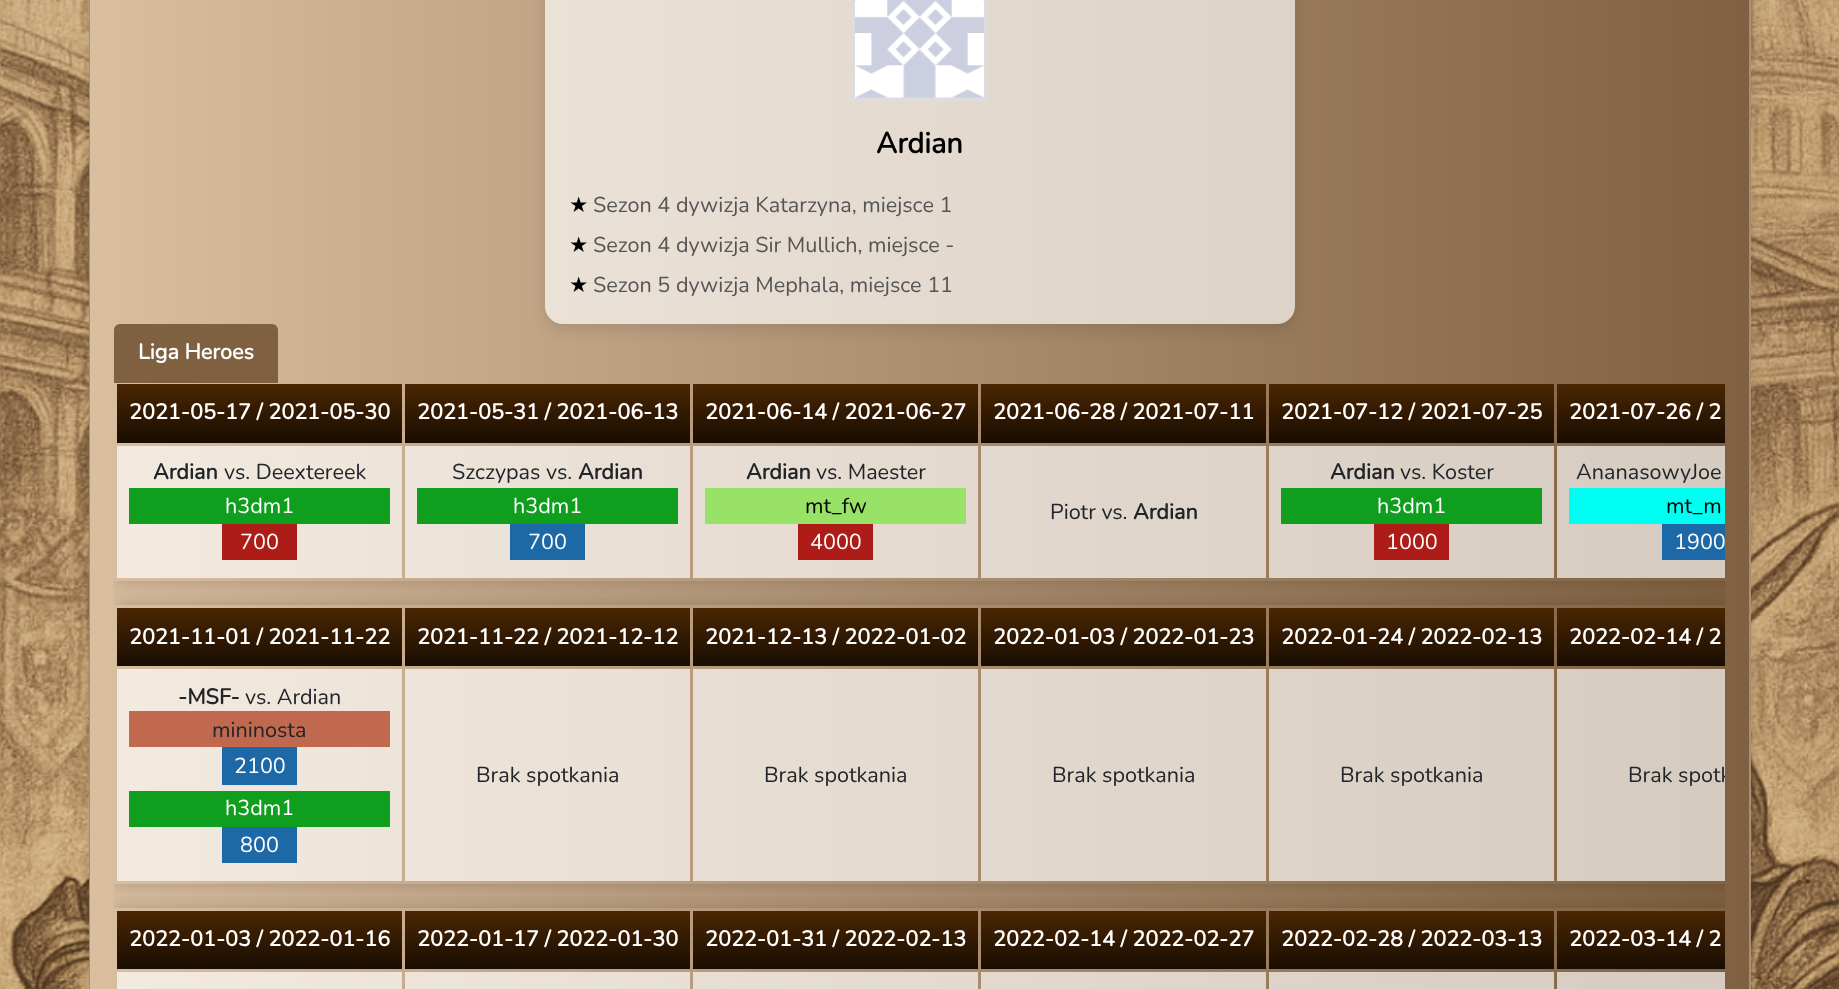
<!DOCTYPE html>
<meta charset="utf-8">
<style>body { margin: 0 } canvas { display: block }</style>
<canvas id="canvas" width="1839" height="989"></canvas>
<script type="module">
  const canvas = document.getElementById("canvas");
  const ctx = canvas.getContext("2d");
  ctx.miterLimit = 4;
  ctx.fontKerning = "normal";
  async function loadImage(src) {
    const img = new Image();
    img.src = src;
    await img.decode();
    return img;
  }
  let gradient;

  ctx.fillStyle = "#ffffff";
  ctx.fillRect(0, 0, 1839, 989);
  ctx.drawImage(await loadImage("img1.png"), 0, 0, 1839, 989);
  ctx.fillStyle = "rgba(0, 0, 0, 0.1)";
  ctx.filter = "blur(4.5px)";
  ctx.beginPath();
  ctx.roundRect(89, -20, 1662, 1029, 6);
  ctx.fill();
  ctx.filter = "none";
  ctx.strokeStyle = "#a98d74";
  ctx.lineWidth = 2;
  ctx.strokeRect(90, -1, 1660, 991);
  gradient = ctx.createLinearGradient(90, 536, 1749, 536);
  gradient.addColorStop(0, "#d9bea0");
  gradient.addColorStop(1, "#7f6041");
  ctx.fillStyle = gradient;
  ctx.fillRect(90, 0, 1659, 989);
  ctx.save();
  ctx.beginPath();
  ctx.moveTo(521, 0);
  ctx.lineTo(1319, 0);
  ctx.lineTo(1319, 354);
  ctx.lineTo(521, 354);
  ctx.closePath();
  ctx.moveTo(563, -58);
  ctx.lineTo(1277, -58);
  ctx.bezierCurveTo(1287, -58, 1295, -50, 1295, -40);
  ctx.lineTo(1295, 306);
  ctx.bezierCurveTo(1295, 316, 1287, 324, 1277, 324);
  ctx.lineTo(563, 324);
  ctx.bezierCurveTo(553, 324, 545, 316, 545, 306);
  ctx.lineTo(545, -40);
  ctx.bezierCurveTo(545, -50, 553, -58, 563, -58);
  ctx.closePath();
  ctx.clip("evenodd");
  ctx.fillStyle = "rgba(0, 0, 0, 0.1)";
  ctx.filter = "blur(7.5px)";
  ctx.beginPath();
  ctx.roundRect(545, -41, 750, 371, 18);
  ctx.fill();
  ctx.filter = "none";
  ctx.restore();
  ctx.fillStyle = "rgba(255, 255, 255, 0.67)";
  ctx.beginPath();
  ctx.roundRect(545, -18, 750, 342, 18);
  ctx.fill();
  ctx.strokeStyle = "#dddddd";
  ctx.lineWidth = 3;
  ctx.strokeRect(853.5, -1.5, 132, 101);
  ctx.drawImage(await loadImage("img2.png"), 855, 0, 129, 98);
  ctx.font = "bold 29px Nunito";
  ctx.fillStyle = "#000000";
  ctx.fillText("Ardian", 876, 153);
  ctx.font = "21.6px DejaVu Sans";
  ctx.fillText("★", 569, 212);
  ctx.font = "200 21.6px Nunito";
  ctx.fillStyle = "#555555";
  ctx.fillText("Sezon 4 dywizja Katarzyna, miejsce 1", 593, 212);
  ctx.font = "21.6px DejaVu Sans";
  ctx.fillStyle = "#000000";
  ctx.fillText("★", 569, 252);
  ctx.font = "200 21.6px Nunito";
  ctx.fillStyle = "#555555";
  ctx.fillText("Sezon 4 dywizja Sir Mullich, miejsce -", 593, 252);
  ctx.font = "21.6px DejaVu Sans";
  ctx.fillStyle = "#000000";
  ctx.fillText("★", 569, 292);
  ctx.font = "200 21.6px Nunito";
  ctx.fillStyle = "#555555";
  ctx.fillText("Sezon 5 dywizja Mephala, miejsce 11", 593, 292);
  ctx.fillStyle = "#7f6041";
  ctx.beginPath();
  ctx.roundRect(114, 324, 164, 59, [6, 6, 0, 0]);
  ctx.fill();
  ctx.font = "bold 21.6px Nunito";
  ctx.fillStyle = "#ffffff";
  ctx.fillText("Liga Heroes", 138, 359);
  ctx.save();
  ctx.beginPath();
  ctx.rect(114, 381, 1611, 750);
  ctx.clip();
  ctx.beginPath();
  ctx.moveTo(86, 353);
  ctx.lineTo(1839, 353);
  ctx.lineTo(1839, 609);
  ctx.lineTo(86, 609);
  ctx.closePath();
  ctx.moveTo(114, 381);
  ctx.lineTo(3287, 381);
  ctx.lineTo(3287, 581);
  ctx.lineTo(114, 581);
  ctx.closePath();
  ctx.clip("evenodd");
  ctx.fillStyle = "rgba(0, 0, 0, 0.2)";
  ctx.filter = "blur(9px)";
  ctx.beginPath();
  ctx.rect(114, 381, 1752, 200);
  ctx.fill();
  ctx.filter = "none";
  ctx.restore();
  gradient = ctx.createLinearGradient(260, 384, 260, 443);
  gradient.addColorStop(0, "#4b2603");
  gradient.addColorStop(1, "#190d01");
  ctx.fillStyle = gradient;
  ctx.fillRect(117, 384, 285, 59);
  ctx.fillStyle = "#ffffff";
  ctx.fillText("2021-05-17 / 2021-05-30", 129, 419);
  gradient = ctx.createLinearGradient(548, 384, 548, 443);
  gradient.addColorStop(0, "#4b2603");
  gradient.addColorStop(1, "#190d01");
  ctx.fillStyle = gradient;
  ctx.fillRect(405, 384, 285, 59);
  ctx.fillStyle = "#ffffff";
  ctx.fillText("2021-05-31 / 2021-06-13", 417, 419);
  gradient = ctx.createLinearGradient(836, 384, 836, 443);
  gradient.addColorStop(0, "#4b2603");
  gradient.addColorStop(1, "#190d01");
  ctx.fillStyle = gradient;
  ctx.fillRect(693, 384, 285, 59);
  ctx.fillStyle = "#ffffff";
  ctx.fillText("2021-06-14 / 2021-06-27", 705, 419);
  gradient = ctx.createLinearGradient(1124, 384, 1124, 443);
  gradient.addColorStop(0, "#4b2603");
  gradient.addColorStop(1, "#190d01");
  ctx.fillStyle = gradient;
  ctx.fillRect(981, 384, 285, 59);
  ctx.fillStyle = "#ffffff";
  ctx.fillText("2021-06-28 / 2021-07-11", 993, 419);
  gradient = ctx.createLinearGradient(1412, 384, 1412, 443);
  gradient.addColorStop(0, "#4b2603");
  gradient.addColorStop(1, "#190d01");
  ctx.fillStyle = gradient;
  ctx.fillRect(1269, 384, 285, 59);
  ctx.fillStyle = "#ffffff";
  ctx.fillText("2021-07-12 / 2021-07-25", 1281, 419);
  gradient = ctx.createLinearGradient(1700, 384, 1700, 443);
  gradient.addColorStop(0, "#4b2603");
  gradient.addColorStop(1, "#190d01");
  ctx.fillStyle = gradient;
  ctx.fillRect(1557, 384, 168, 59);
  ctx.fillStyle = "#ffffff";
  ctx.fillText("2021-07-26 / 2", 1569, 419);
  ctx.fillStyle = "rgba(255, 255, 255, 0.67)";
  ctx.fillRect(117, 446, 285, 132);
  ctx.fillStyle = "#212529";
  ctx.fillText("Ardian", 153, 479);
  ctx.font = "200 21.6px Nunito";
  ctx.fillText("vs. Deextereek", 224, 479);
  ctx.fillStyle = "#0f9e1e";
  ctx.fillRect(129, 488, 261, 36);
  ctx.fillStyle = "#ffffff";
  ctx.fillText("h3dm1", 225, 513);
  ctx.fillStyle = "#ae1c17";
  ctx.fillRect(222, 524, 75, 36);
  ctx.fillStyle = "#ffffff";
  ctx.fillText("700", 240, 549);
  ctx.fillStyle = "rgba(255, 255, 255, 0.67)";
  ctx.fillRect(405, 446, 285, 132);
  ctx.fillStyle = "#212529";
  ctx.fillText("Szczypas vs.", 452, 479);
  ctx.font = "bold 21.6px Nunito";
  ctx.fillText("Ardian", 578, 479);
  ctx.fillStyle = "#0f9e1e";
  ctx.fillRect(417, 488, 261, 36);
  ctx.font = "200 21.6px Nunito";
  ctx.fillStyle = "#ffffff";
  ctx.fillText("h3dm1", 513, 513);
  ctx.fillStyle = "#1d68a7";
  ctx.fillRect(510, 524, 75, 36);
  ctx.fillStyle = "#ffffff";
  ctx.fillText("700", 528, 549);
  ctx.fillStyle = "rgba(255, 255, 255, 0.67)";
  ctx.fillRect(693, 446, 285, 132);
  ctx.font = "bold 21.6px Nunito";
  ctx.fillStyle = "#212529";
  ctx.fillText("Ardian", 746, 479);
  ctx.font = "200 21.6px Nunito";
  ctx.fillText("vs. Maester", 816, 479);
  ctx.fillStyle = "#97e267";
  ctx.fillRect(705, 488, 261, 36);
  ctx.fillStyle = "#000000";
  ctx.fillText("mt_fw", 805, 513);
  ctx.fillStyle = "#ae1c17";
  ctx.fillRect(798, 524, 75, 36);
  ctx.fillStyle = "#ffffff";
  ctx.fillText("4000", 810, 549);
  ctx.fillStyle = "rgba(255, 255, 255, 0.67)";
  ctx.fillRect(981, 446, 285, 132);
  ctx.fillStyle = "#212529";
  ctx.fillText("Piotr vs.", 1050, 519);
  ctx.font = "bold 21.6px Nunito";
  ctx.fillText("Ardian", 1133, 519);
  ctx.fillStyle = "rgba(255, 255, 255, 0.67)";
  ctx.fillRect(1269, 446, 285, 132);
  ctx.fillStyle = "#212529";
  ctx.fillText("Ardian", 1330, 479);
  ctx.font = "200 21.6px Nunito";
  ctx.fillText("vs. Koster", 1400, 479);
  ctx.fillStyle = "#0f9e1e";
  ctx.fillRect(1281, 488, 261, 36);
  ctx.fillStyle = "#ffffff";
  ctx.fillText("h3dm1", 1377, 513);
  ctx.fillStyle = "#ae1c17";
  ctx.fillRect(1374, 524, 75, 36);
  ctx.fillStyle = "#ffffff";
  ctx.fillText("1000", 1386, 549);
  ctx.fillStyle = "rgba(255, 255, 255, 0.67)";
  ctx.fillRect(1557, 446, 168, 132);
  ctx.fillStyle = "#212529";
  ctx.fillText("AnanasowyJoe", 1576, 479);
  ctx.fillStyle = "#00fff3";
  ctx.fillRect(1569, 488, 156, 36);
  ctx.fillStyle = "#000000";
  ctx.fillText("mt_m", 1666, 513);
  ctx.fillStyle = "#1d68a7";
  ctx.fillRect(1662, 524, 63, 36);
  ctx.fillStyle = "#ffffff";
  ctx.fillText("1900", 1674, 549);
  ctx.save();
  ctx.beginPath();
  ctx.rect(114, 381, 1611, 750);
  ctx.clip();
  ctx.beginPath();
  ctx.moveTo(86, 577);
  ctx.lineTo(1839, 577);
  ctx.lineTo(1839, 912);
  ctx.lineTo(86, 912);
  ctx.closePath();
  ctx.moveTo(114, 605);
  ctx.lineTo(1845, 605);
  ctx.lineTo(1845, 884);
  ctx.lineTo(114, 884);
  ctx.closePath();
  ctx.clip("evenodd");
  ctx.fillStyle = "rgba(0, 0, 0, 0.2)";
  ctx.filter = "blur(9px)";
  ctx.beginPath();
  ctx.rect(114, 605, 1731, 279);
  ctx.fill();
  ctx.filter = "none";
  ctx.restore();
  gradient = ctx.createLinearGradient(260, 608, 260, 666);
  gradient.addColorStop(0, "#4b2603");
  gradient.addColorStop(1, "#190d01");
  ctx.fillStyle = gradient;
  ctx.fillRect(117, 608, 285, 58);
  ctx.font = "bold 21.6px Nunito";
  ctx.fillStyle = "#ffffff";
  ctx.fillText("2021-11-01 / 2021-11-22", 129, 644);
  gradient = ctx.createLinearGradient(548, 608, 548, 666);
  gradient.addColorStop(0, "#4b2603");
  gradient.addColorStop(1, "#190d01");
  ctx.fillStyle = gradient;
  ctx.fillRect(405, 608, 285, 58);
  ctx.fillStyle = "#ffffff";
  ctx.fillText("2021-11-22 / 2021-12-12", 417, 644);
  gradient = ctx.createLinearGradient(836, 608, 836, 666);
  gradient.addColorStop(0, "#4b2603");
  gradient.addColorStop(1, "#190d01");
  ctx.fillStyle = gradient;
  ctx.fillRect(693, 608, 285, 58);
  ctx.fillStyle = "#ffffff";
  ctx.fillText("2021-12-13 / 2022-01-02", 705, 644);
  gradient = ctx.createLinearGradient(1124, 608, 1124, 666);
  gradient.addColorStop(0, "#4b2603");
  gradient.addColorStop(1, "#190d01");
  ctx.fillStyle = gradient;
  ctx.fillRect(981, 608, 285, 58);
  ctx.fillStyle = "#ffffff";
  ctx.fillText("2022-01-03 / 2022-01-23", 993, 644);
  gradient = ctx.createLinearGradient(1412, 608, 1412, 666);
  gradient.addColorStop(0, "#4b2603");
  gradient.addColorStop(1, "#190d01");
  ctx.fillStyle = gradient;
  ctx.fillRect(1269, 608, 285, 58);
  ctx.fillStyle = "#ffffff";
  ctx.fillText("2022-01-24 / 2022-02-13", 1281, 644);
  gradient = ctx.createLinearGradient(1700, 608, 1700, 666);
  gradient.addColorStop(0, "#4b2603");
  gradient.addColorStop(1, "#190d01");
  ctx.fillStyle = gradient;
  ctx.fillRect(1557, 608, 168, 58);
  ctx.fillStyle = "#ffffff";
  ctx.fillText("2022-02-14 / 2", 1569, 644);
  ctx.fillStyle = "rgba(255, 255, 255, 0.67)";
  ctx.fillRect(117, 669, 285, 212);
  ctx.fillStyle = "#212529";
  ctx.fillText("-MSF-", 178, 704);
  ctx.font = "200 21.6px Nunito";
  ctx.fillText("vs. Ardian", 245, 704);
  ctx.fillStyle = "#c1694f";
  ctx.fillRect(129, 711, 261, 36);
  ctx.fillStyle = "#212529";
  ctx.fillText("mininosta", 212, 737);
  ctx.fillStyle = "#1d68a7";
  ctx.fillRect(222, 747, 75, 38);
  ctx.fillStyle = "#ffffff";
  ctx.fillText("2100", 234, 773);
  ctx.fillStyle = "#0f9e1e";
  ctx.fillRect(129, 791, 261, 36);
  ctx.fillStyle = "#ffffff";
  ctx.fillText("h3dm1", 225, 815);
  ctx.fillStyle = "#1d68a7";
  ctx.fillRect(222, 827, 75, 36);
  ctx.fillStyle = "#ffffff";
  ctx.fillText("800", 240, 852);
  ctx.fillStyle = "rgba(255, 255, 255, 0.67)";
  ctx.fillRect(405, 669, 285, 212);
  ctx.fillStyle = "#212529";
  ctx.fillText("Brak spotkania", 476, 782);
  ctx.fillStyle = "rgba(255, 255, 255, 0.67)";
  ctx.fillRect(693, 669, 285, 212);
  ctx.fillStyle = "#212529";
  ctx.fillText("Brak spotkania", 764, 782);
  ctx.fillStyle = "rgba(255, 255, 255, 0.67)";
  ctx.fillRect(981, 669, 285, 212);
  ctx.fillStyle = "#212529";
  ctx.fillText("Brak spotkania", 1052, 782);
  ctx.fillStyle = "rgba(255, 255, 255, 0.67)";
  ctx.fillRect(1269, 669, 285, 212);
  ctx.fillStyle = "#212529";
  ctx.fillText("Brak spotkania", 1340, 782);
  ctx.fillStyle = "rgba(255, 255, 255, 0.67)";
  ctx.fillRect(1557, 669, 168, 212);
  ctx.save();
  ctx.beginPath();
  ctx.rect(114, 381, 1611, 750);
  ctx.clip();
  ctx.fillStyle = "#212529";
  ctx.fillText("Brak spotk", 1628, 782);
  ctx.restore();
  ctx.save();
  ctx.beginPath();
  ctx.rect(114, 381, 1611, 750);
  ctx.clip();
  ctx.beginPath();
  ctx.rect(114, 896, 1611, 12);
  ctx.clip();
  ctx.fillStyle = "rgba(0, 0, 0, 0.2)";
  ctx.filter = "blur(9px)";
  ctx.beginPath();
  ctx.rect(114, 908, 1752, 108);
  ctx.fill();
  ctx.filter = "none";
  ctx.restore();
  gradient = ctx.createLinearGradient(260, 911, 260, 969);
  gradient.addColorStop(0, "#4b2603");
  gradient.addColorStop(1, "#190d01");
  ctx.fillStyle = gradient;
  ctx.fillRect(117, 911, 285, 58);
  ctx.font = "bold 21.6px Nunito";
  ctx.fillStyle = "#ffffff";
  ctx.fillText("2022-01-03 / 2022-01-16", 129, 946);
  gradient = ctx.createLinearGradient(548, 911, 548, 969);
  gradient.addColorStop(0, "#4b2603");
  gradient.addColorStop(1, "#190d01");
  ctx.fillStyle = gradient;
  ctx.fillRect(405, 911, 285, 58);
  ctx.fillStyle = "#ffffff";
  ctx.fillText("2022-01-17 / 2022-01-30", 417, 946);
  gradient = ctx.createLinearGradient(836, 911, 836, 969);
  gradient.addColorStop(0, "#4b2603");
  gradient.addColorStop(1, "#190d01");
  ctx.fillStyle = gradient;
  ctx.fillRect(693, 911, 285, 58);
  ctx.fillStyle = "#ffffff";
  ctx.fillText("2022-01-31 / 2022-02-13", 705, 946);
  gradient = ctx.createLinearGradient(1124, 911, 1124, 969);
  gradient.addColorStop(0, "#4b2603");
  gradient.addColorStop(1, "#190d01");
  ctx.fillStyle = gradient;
  ctx.fillRect(981, 911, 285, 58);
  ctx.fillStyle = "#ffffff";
  ctx.fillText("2022-02-14 / 2022-02-27", 993, 946);
  gradient = ctx.createLinearGradient(1412, 911, 1412, 969);
  gradient.addColorStop(0, "#4b2603");
  gradient.addColorStop(1, "#190d01");
  ctx.fillStyle = gradient;
  ctx.fillRect(1269, 911, 285, 58);
  ctx.fillStyle = "#ffffff";
  ctx.fillText("2022-02-28 / 2022-03-13", 1281, 946);
  gradient = ctx.createLinearGradient(1700, 911, 1700, 969);
  gradient.addColorStop(0, "#4b2603");
  gradient.addColorStop(1, "#190d01");
  ctx.fillStyle = gradient;
  ctx.fillRect(1557, 911, 168, 58);
  ctx.fillStyle = "#ffffff";
  ctx.fillText("2022-03-14 / 2", 1569, 946);
  ctx.fillStyle = "rgba(255, 255, 255, 0.67)";
  ctx.fillRect(117, 972, 285, 17);
  ctx.fillRect(405, 972, 285, 17);
  ctx.fillRect(693, 972, 285, 17);
  ctx.fillRect(981, 972, 285, 17);
  ctx.fillRect(1269, 972, 285, 17);
  ctx.fillRect(1557, 972, 168, 17);
</script>
